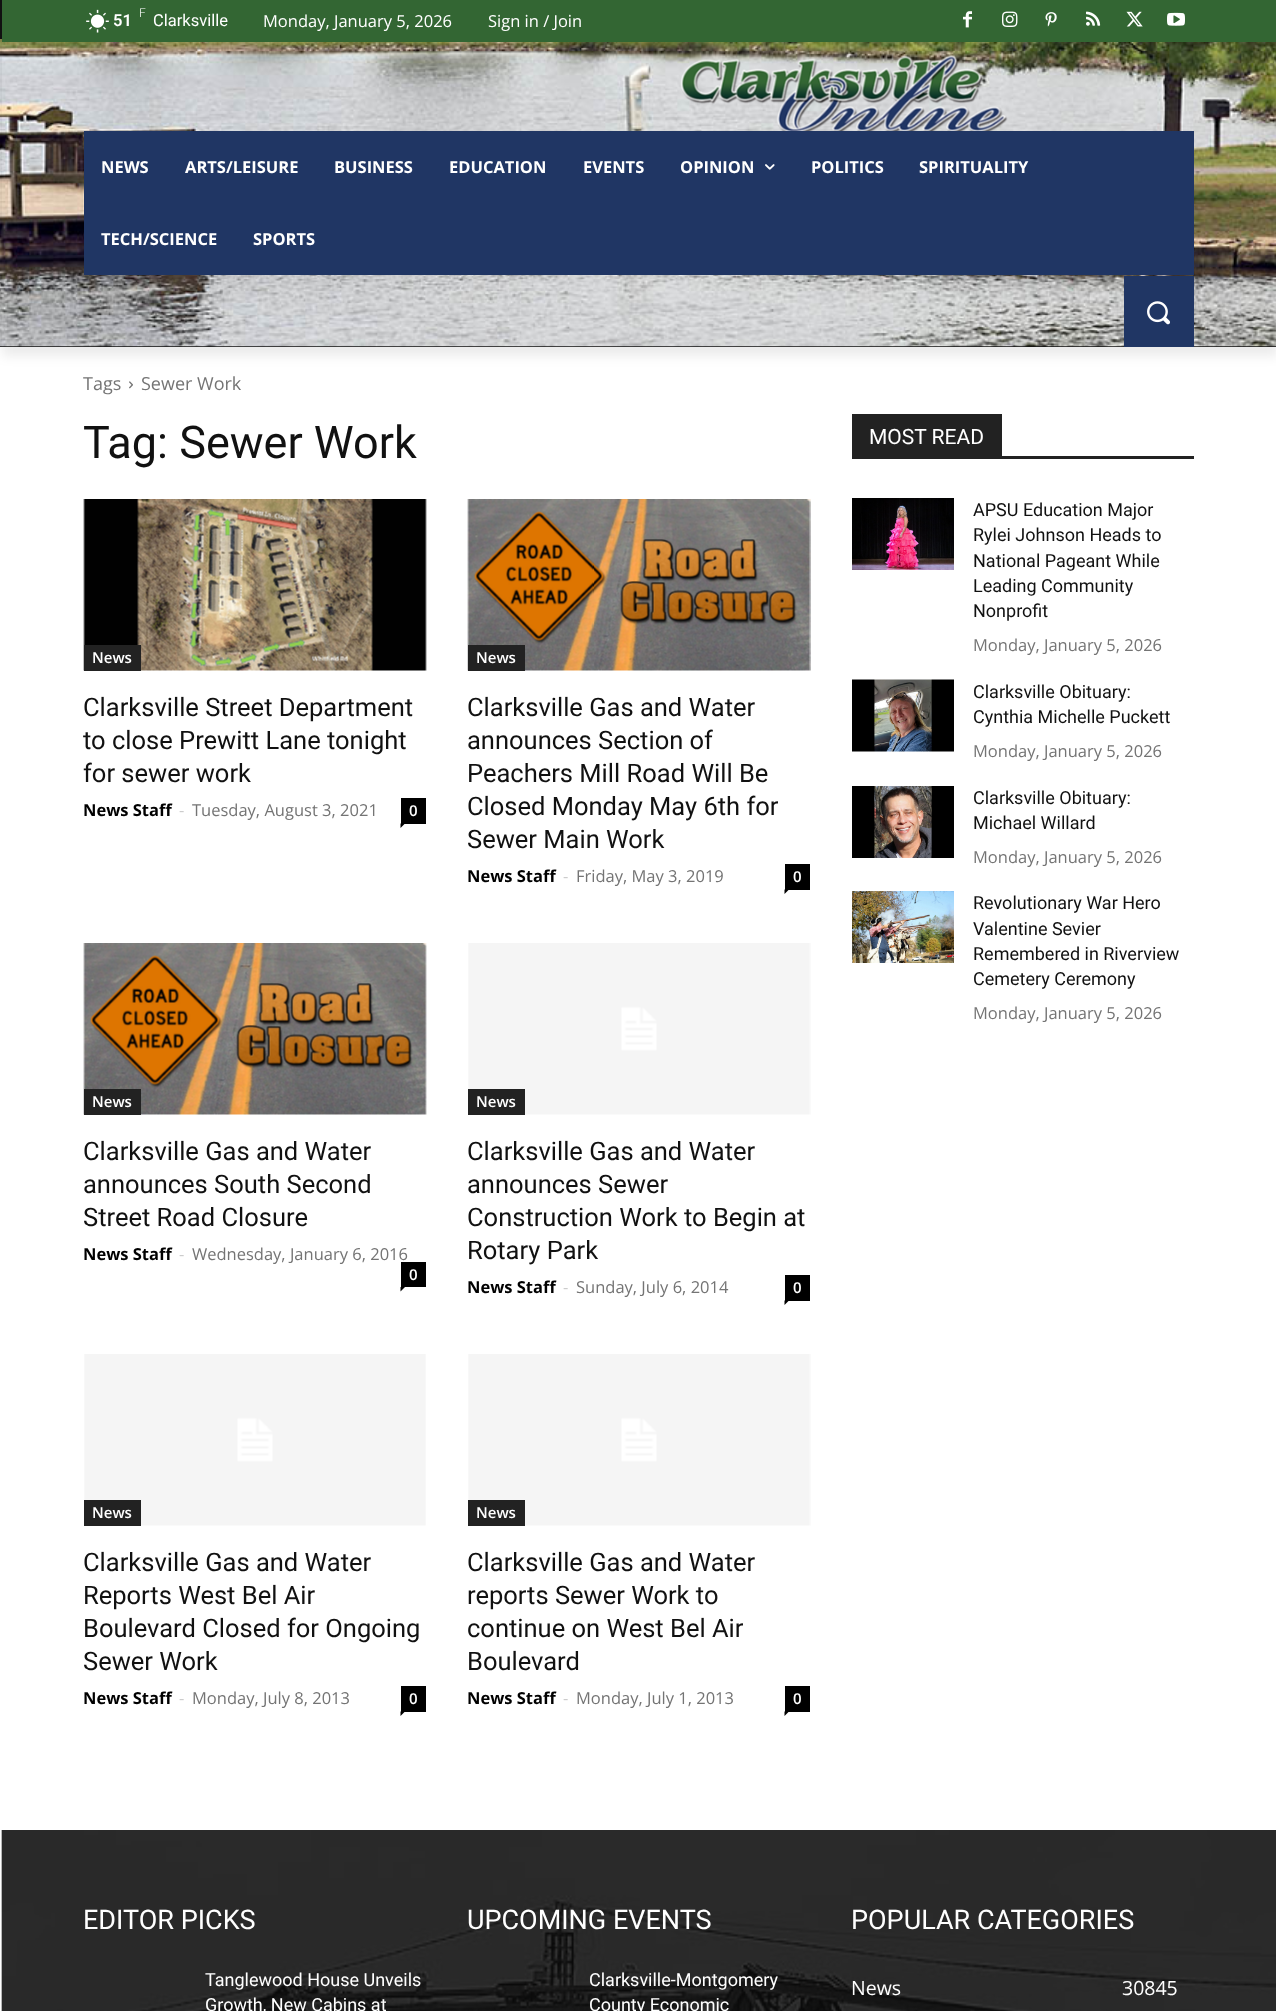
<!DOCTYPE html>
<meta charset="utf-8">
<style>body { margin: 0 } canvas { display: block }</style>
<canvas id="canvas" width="1276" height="2011"></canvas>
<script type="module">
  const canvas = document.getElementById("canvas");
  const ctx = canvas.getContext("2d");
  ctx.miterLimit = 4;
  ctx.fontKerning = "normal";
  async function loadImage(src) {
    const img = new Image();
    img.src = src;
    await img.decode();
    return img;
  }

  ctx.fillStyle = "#ffffff";
  ctx.fillRect(0, 0, 1276, 2011);
  ctx.drawImage(await loadImage("img1.png"), 0, 0, 1276, 347);
  ctx.drawImage(await loadImage("img9.png"), 0, 39, 1276, 308);
  ctx.fillStyle = "#336633";
  ctx.fillRect(2, 0, 1274, 42);
  ctx.drawImage(await loadImage("img2.png"), 86, 9, 23, 24);
  ctx.drawImage(await loadImage("img3.png"), 963, 11, 9, 17);
  ctx.drawImage(await loadImage("img4.png"), 1002, 11, 16, 16);
  ctx.drawImage(await loadImage("img5.png"), 1045, 12, 12, 15);
  ctx.drawImage(await loadImage("img6.png"), 1086, 11, 15, 15);
  ctx.drawImage(await loadImage("img7.png"), 1126, 11, 17, 16);
  ctx.drawImage(await loadImage("img8.png"), 1167, 12, 18, 14);
  ctx.drawImage(await loadImage("img10.png"), 680, 55, 328, 76);
  ctx.save();
  ctx.beginPath();
  ctx.moveTo(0, 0);
  ctx.lineTo(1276, 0);
  ctx.lineTo(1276, 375);
  ctx.lineTo(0, 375);
  ctx.closePath();
  ctx.moveTo(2, 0);
  ctx.lineTo(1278, 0);
  ctx.lineTo(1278, 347);
  ctx.lineTo(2, 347);
  ctx.closePath();
  ctx.clip("evenodd");
  ctx.fillStyle = "rgba(0, 0, 0, 0.08)";
  ctx.filter = "blur(6px)";
  ctx.beginPath();
  ctx.rect(2, 9, 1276, 347);
  ctx.fill();
  ctx.filter = "none";
  ctx.restore();
  ctx.font = "300 12px Roboto";
  ctx.fillStyle = "#ffffff";
  ctx.fillText("F", 139, 17);
  ctx.font = "600 16.5px Roboto";
  ctx.fillText("51", 113, 26);
  ctx.font = "16.5px Roboto";
  ctx.fillText("Clarksville", 153, 26);
  ctx.font = "16.5px Open Sans";
  ctx.fillText("Monday, January 5, 2026", 263, 27);
  ctx.fillText("Sign in / Join", 488, 27);
  ctx.fillStyle = "#203664";
  ctx.fillRect(84, 131, 1110, 144);
  ctx.font = "bold 16.5px Open Sans";
  ctx.fillStyle = "#ffffff";
  ctx.fillText("NEWS", 101, 173);
  ctx.fillText("ARTS/LEISURE", 185, 173);
  ctx.fillText("BUSINESS", 334, 173);
  ctx.fillText("EDUCATION", 449, 173);
  ctx.fillText("EVENTS", 583, 173);
  ctx.fillText("OPINION", 680, 173);
  ctx.drawImage(await loadImage("img11.png"), 765, 164, 10, 6);
  ctx.fillText("POLITICS", 811, 173);
  ctx.fillText("SPIRITUALITY", 919, 173);
  ctx.fillText("TECH/SCIENCE", 101, 245);
  ctx.fillText("SPORTS", 253, 245);
  ctx.fillStyle = "#203664";
  ctx.fillRect(1124, 276, 70, 71);
  ctx.drawImage(await loadImage("img12.png"), 1147, 301, 23, 24);
  ctx.font = "18px Open Sans";
  ctx.fillStyle = "#747474";
  ctx.fillText("Tags", 83, 390);
  ctx.drawImage(await loadImage("img13.png"), 129, 381, 4, 8);
  ctx.fillText("Sewer Work", 141, 390);
  ctx.font = "45px Roboto";
  ctx.fillStyle = "#111111";
  ctx.fillText("Tag: Sewer Work", 83, 458);
  ctx.drawImage(await loadImage("img14.png"), 83, 499, 344, 172);
  ctx.fillStyle = "#222222";
  ctx.fillRect(84, 645, 57, 26);
  ctx.font = "600 15px Open Sans";
  ctx.fillStyle = "#ffffff";
  ctx.fillText("News", 92, 663);
  ctx.font = "25.5px Roboto";
  ctx.fillStyle = "#111111";
  ctx.fillText("Clarksville Street Department", 83, 716);
  ctx.fillText("to close Prewitt Lane tonight", 83, 749);
  ctx.fillText("for sewer work", 83, 782);
  ctx.font = "bold 16.5px Open Sans";
  ctx.fillStyle = "#000000";
  ctx.fillText("News Staff", 83, 816);
  ctx.font = "16.5px Open Sans";
  ctx.fillStyle = "#cccccc";
  ctx.fillText("-", 179, 816);
  ctx.fillStyle = "#747474";
  ctx.fillText("Tuesday, August 3, 2021", 192, 816);
  ctx.fillStyle = "#000000";
  ctx.fillRect(401, 798, 25, 26);
  ctx.font = "600 15px Open Sans";
  ctx.fillStyle = "#ffffff";
  ctx.fillText("0", 409, 816);
  ctx.fillStyle = "#000000";
  ctx.beginPath();
  ctx.moveTo(400.5, 823.5);
  ctx.lineTo(405, 823.5);
  ctx.lineTo(400.5, 828);
  ctx.closePath();
  ctx.fill();
  ctx.drawImage(await loadImage("img15.png"), 467, 499, 344, 172);
  ctx.fillStyle = "#222222";
  ctx.fillRect(468, 645, 57, 26);
  ctx.fillStyle = "#ffffff";
  ctx.fillText("News", 476, 663);
  ctx.font = "25.5px Roboto";
  ctx.fillStyle = "#111111";
  ctx.fillText("Clarksville Gas and Water", 467, 716);
  ctx.fillText("announces Section of", 467, 749);
  ctx.fillText("Peachers Mill Road Will Be", 467, 782);
  ctx.fillText("Closed Monday May 6th for", 467, 815);
  ctx.fillText("Sewer Main Work", 467, 848);
  ctx.font = "bold 16.5px Open Sans";
  ctx.fillStyle = "#000000";
  ctx.fillText("News Staff", 467, 882);
  ctx.font = "16.5px Open Sans";
  ctx.fillStyle = "#cccccc";
  ctx.fillText("-", 563, 882);
  ctx.fillStyle = "#747474";
  ctx.fillText("Friday, May 3, 2019", 576, 882);
  ctx.fillStyle = "#000000";
  ctx.fillRect(785, 864, 25, 26);
  ctx.font = "600 15px Open Sans";
  ctx.fillStyle = "#ffffff";
  ctx.fillText("0", 793, 882);
  ctx.fillStyle = "#000000";
  ctx.beginPath();
  ctx.moveTo(784.5, 889.5);
  ctx.lineTo(789, 889.5);
  ctx.lineTo(784.5, 894);
  ctx.closePath();
  ctx.fill();
  ctx.drawImage(await loadImage("img16.png"), 83, 943, 344, 172);
  ctx.fillStyle = "#222222";
  ctx.fillRect(84, 1089, 57, 26);
  ctx.fillStyle = "#ffffff";
  ctx.fillText("News", 92, 1107);
  ctx.font = "25.5px Roboto";
  ctx.fillStyle = "#111111";
  ctx.fillText("Clarksville Gas and Water", 83, 1160);
  ctx.fillText("announces South Second", 83, 1193);
  ctx.fillText("Street Road Closure", 83, 1226);
  ctx.font = "bold 16.5px Open Sans";
  ctx.fillStyle = "#000000";
  ctx.fillText("News Staff", 83, 1260);
  ctx.font = "16.5px Open Sans";
  ctx.fillStyle = "#cccccc";
  ctx.fillText("-", 179, 1260);
  ctx.fillStyle = "#747474";
  ctx.fillText("Wednesday, January 6, 2016", 192, 1260);
  ctx.fillStyle = "#000000";
  ctx.fillRect(401, 1262, 25, 25);
  ctx.font = "600 15px Open Sans";
  ctx.fillStyle = "#ffffff";
  ctx.fillText("0", 409, 1280);
  ctx.fillStyle = "#000000";
  ctx.beginPath();
  ctx.moveTo(400.5, 1287);
  ctx.lineTo(405, 1287);
  ctx.lineTo(400.5, 1291.5);
  ctx.closePath();
  ctx.fill();
  ctx.drawImage(await loadImage("img17.png"), 468, 943, 343, 172);
  ctx.fillStyle = "#222222";
  ctx.fillRect(468, 1089, 57, 26);
  ctx.fillStyle = "#ffffff";
  ctx.fillText("News", 476, 1107);
  ctx.font = "25.5px Roboto";
  ctx.fillStyle = "#111111";
  ctx.fillText("Clarksville Gas and Water", 467, 1160);
  ctx.fillText("announces Sewer", 467, 1193);
  ctx.fillText("Construction Work to Begin at", 467, 1226);
  ctx.fillText("Rotary Park", 467, 1259);
  ctx.font = "bold 16.5px Open Sans";
  ctx.fillStyle = "#000000";
  ctx.fillText("News Staff", 467, 1293);
  ctx.font = "16.5px Open Sans";
  ctx.fillStyle = "#cccccc";
  ctx.fillText("-", 563, 1293);
  ctx.fillStyle = "#747474";
  ctx.fillText("Sunday, July 6, 2014", 576, 1293);
  ctx.fillStyle = "#000000";
  ctx.fillRect(785, 1275, 25, 26);
  ctx.font = "600 15px Open Sans";
  ctx.fillStyle = "#ffffff";
  ctx.fillText("0", 793, 1293);
  ctx.fillStyle = "#000000";
  ctx.beginPath();
  ctx.moveTo(784.5, 1300.5);
  ctx.lineTo(789, 1300.5);
  ctx.lineTo(784.5, 1305);
  ctx.closePath();
  ctx.fill();
  ctx.drawImage(await loadImage("img18.png"), 84, 1354, 342, 172);
  ctx.fillStyle = "#222222";
  ctx.fillRect(84, 1500, 57, 26);
  ctx.fillStyle = "#ffffff";
  ctx.fillText("News", 92, 1518);
  ctx.font = "25.5px Roboto";
  ctx.fillStyle = "#111111";
  ctx.fillText("Clarksville Gas and Water", 83, 1571);
  ctx.fillText("Reports West Bel Air", 83, 1604);
  ctx.fillText("Boulevard Closed for Ongoing", 83, 1637);
  ctx.fillText("Sewer Work", 83, 1670);
  ctx.font = "bold 16.5px Open Sans";
  ctx.fillStyle = "#000000";
  ctx.fillText("News Staff", 83, 1704);
  ctx.font = "16.5px Open Sans";
  ctx.fillStyle = "#cccccc";
  ctx.fillText("-", 179, 1704);
  ctx.fillStyle = "#747474";
  ctx.fillText("Monday, July 8, 2013", 192, 1704);
  ctx.fillStyle = "#000000";
  ctx.fillRect(401, 1686, 25, 26);
  ctx.font = "600 15px Open Sans";
  ctx.fillStyle = "#ffffff";
  ctx.fillText("0", 409, 1704);
  ctx.fillStyle = "#000000";
  ctx.beginPath();
  ctx.moveTo(400.5, 1711.5);
  ctx.lineTo(405, 1711.5);
  ctx.lineTo(400.5, 1716);
  ctx.closePath();
  ctx.fill();
  ctx.drawImage(await loadImage("img17.png"), 468, 1354, 343, 172);
  ctx.fillStyle = "#222222";
  ctx.fillRect(468, 1500, 57, 26);
  ctx.fillStyle = "#ffffff";
  ctx.fillText("News", 476, 1518);
  ctx.font = "25.5px Roboto";
  ctx.fillStyle = "#111111";
  ctx.fillText("Clarksville Gas and Water", 467, 1571);
  ctx.fillText("reports Sewer Work to", 467, 1604);
  ctx.fillText("continue on West Bel Air", 467, 1637);
  ctx.fillText("Boulevard", 467, 1670);
  ctx.font = "bold 16.5px Open Sans";
  ctx.fillStyle = "#000000";
  ctx.fillText("News Staff", 467, 1704);
  ctx.font = "16.5px Open Sans";
  ctx.fillStyle = "#cccccc";
  ctx.fillText("-", 563, 1704);
  ctx.fillStyle = "#747474";
  ctx.fillText("Monday, July 1, 2013", 576, 1704);
  ctx.fillStyle = "#000000";
  ctx.fillRect(785, 1686, 25, 26);
  ctx.font = "600 15px Open Sans";
  ctx.fillStyle = "#ffffff";
  ctx.fillText("0", 793, 1704);
  ctx.fillStyle = "#000000";
  ctx.beginPath();
  ctx.moveTo(784.5, 1711.5);
  ctx.lineTo(789, 1711.5);
  ctx.lineTo(784.5, 1716);
  ctx.closePath();
  ctx.fill();
  ctx.fillStyle = "#222222";
  ctx.fillRect(852, 456, 342, 3);
  ctx.fillRect(852, 414, 150, 42);
  ctx.font = "21px Roboto";
  ctx.fillStyle = "#ffffff";
  ctx.fillText("MOST READ", 869, 444);
  ctx.drawImage(await loadImage("img19.png"), 852, 498, 102, 72);
  ctx.font = "18px Roboto";
  ctx.fillStyle = "#111111";
  ctx.fillText("APSU Education Major", 973, 516);
  ctx.fillText("Rylei Johnson Heads to", 973, 541);
  ctx.fillText("National Pageant While", 973, 567);
  ctx.fillText("Leading Community", 973, 592);
  ctx.fillText("Nonprofit", 973, 617);
  ctx.font = "16.5px Open Sans";
  ctx.fillStyle = "#747474";
  ctx.fillText("Monday, January 5, 2026", 973, 651);
  ctx.drawImage(await loadImage("img20.png"), 852, 679, 102, 73);
  ctx.font = "18px Roboto";
  ctx.fillStyle = "#111111";
  ctx.fillText("Clarksville Obituary:", 973, 698);
  ctx.fillText("Cynthia Michelle Puckett", 973, 723);
  ctx.font = "16.5px Open Sans";
  ctx.fillStyle = "#747474";
  ctx.fillText("Monday, January 5, 2026", 973, 757);
  ctx.drawImage(await loadImage("img21.png"), 852, 786, 102, 72);
  ctx.font = "18px Roboto";
  ctx.fillStyle = "#111111";
  ctx.fillText("Clarksville Obituary:", 973, 804);
  ctx.fillText("Michael Willard", 973, 829);
  ctx.font = "16.5px Open Sans";
  ctx.fillStyle = "#747474";
  ctx.fillText("Monday, January 5, 2026", 973, 863);
  ctx.drawImage(await loadImage("img22.png"), 852, 891, 102, 72);
  ctx.font = "18px Roboto";
  ctx.fillStyle = "#111111";
  ctx.fillText("Revolutionary War Hero", 973, 909);
  ctx.fillText("Valentine Sevier", 973, 935);
  ctx.fillText("Remembered in Riverview", 973, 960);
  ctx.fillText("Cemetery Ceremony", 973, 985);
  ctx.font = "16.5px Open Sans";
  ctx.fillStyle = "#747474";
  ctx.fillText("Monday, January 5, 2026", 973, 1019);
  ctx.fillStyle = "#111111";
  ctx.fillRect(2, 1830, 1274, 181);
  ctx.drawImage(await loadImage("img23.png"), 1, 1830, 1275, 181);
  ctx.font = "27px Roboto";
  ctx.fillStyle = "#ffffff";
  ctx.fillText("EDITOR PICKS", 83, 1929);
  ctx.font = "18px Roboto";
  ctx.fillText("Tanglewood House Unveils", 205, 1986);
  ctx.fillText("Growth, New Cabins at", 205, 2011);
  ctx.font = "27px Roboto";
  ctx.fillText("UPCOMING EVENTS", 467, 1929);
  ctx.font = "18px Roboto";
  ctx.fillText("Clarksville-Montgomery", 589, 1986);
  ctx.fillText("County Economic", 589, 2011);
  ctx.font = "27px Roboto";
  ctx.fillText("POPULAR CATEGORIES", 851, 1929);
  ctx.font = "19.5px Open Sans";
  ctx.fillText("News", 851, 1995);
  ctx.fillText("30845", 1122, 1995);
</script>
